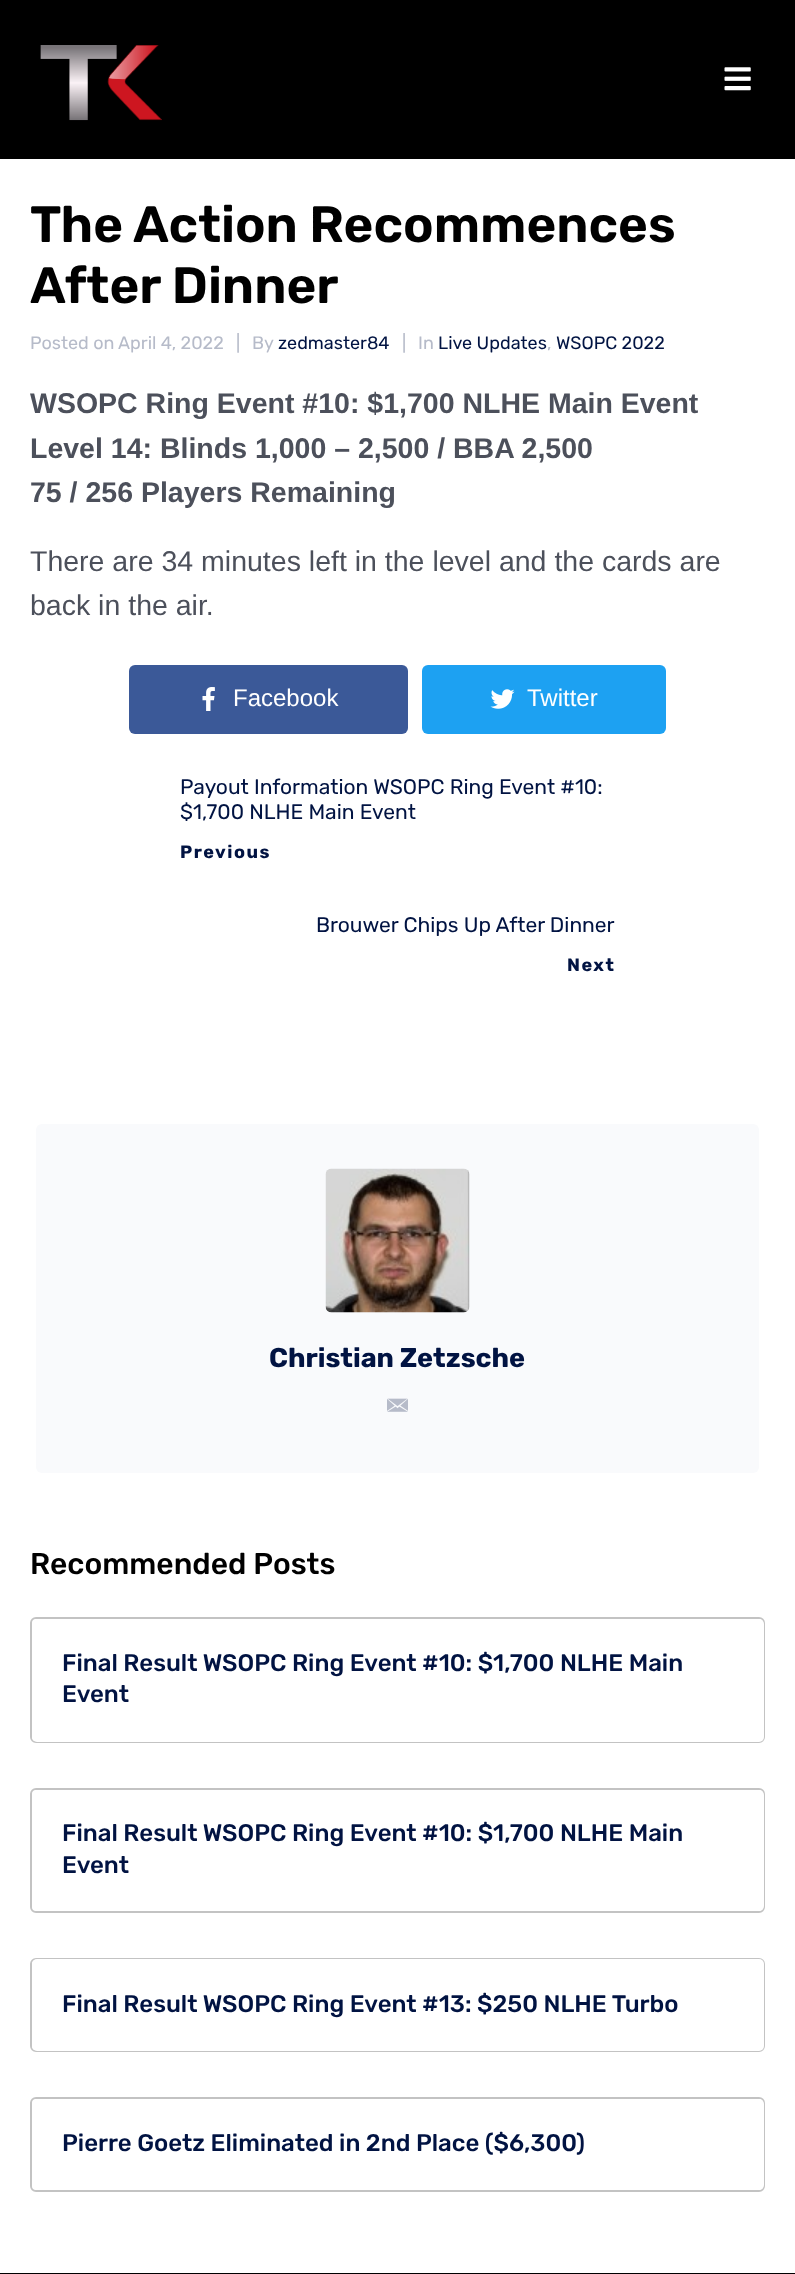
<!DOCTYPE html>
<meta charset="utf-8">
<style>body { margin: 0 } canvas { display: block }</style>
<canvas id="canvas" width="795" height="2274"></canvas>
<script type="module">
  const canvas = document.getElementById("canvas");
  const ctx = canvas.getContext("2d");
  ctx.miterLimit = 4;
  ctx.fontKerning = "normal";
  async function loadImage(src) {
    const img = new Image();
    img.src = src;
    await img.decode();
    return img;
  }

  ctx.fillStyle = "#000000";
  ctx.fillRect(0, 0, 795, 2274);
  ctx.drawImage(await loadImage("img1.png"), 40, 45, 122, 76);
  ctx.drawImage(await loadImage("img2.png"), 724, 67, 27, 24);
  ctx.fillStyle = "#ffffff";
  ctx.fillRect(0, 159, 795, 2114);
  ctx.font = "600 51px Rubik";
  ctx.fillStyle = "#000000";
  ctx.fillText("The Action Recommences", 30, 242);
  ctx.fillText("After Dinner", 30, 303);
  ctx.font = "18px Rubik";
  ctx.fillStyle = "#b6bbc9";
  ctx.fillText("Posted on", 30, 349);
  ctx.fillText("April 4, 2022", 118, 349);
  ctx.fillText("|", 236, 349);
  ctx.fillText("By", 252, 349);
  ctx.fillStyle = "#011342";
  ctx.fillText("zedmaster84", 278, 349);
  ctx.fillStyle = "#b6bbc9";
  ctx.fillText("|", 402, 349);
  ctx.fillText("In", 418, 349);
  ctx.fillStyle = "#011342";
  ctx.fillText("Live Updates", 438, 349);
  ctx.fillStyle = "#b6bbc9";
  ctx.fillText(",", 547, 349);
  ctx.fillStyle = "#011342";
  ctx.fillText("WSOPC 2022", 556, 349);
  ctx.font = "bold 28.5px Liberation Sans";
  ctx.fillStyle = "#4c505b";
  ctx.fillText("WSOPC Ring Event #10: $1,700 NLHE Main Event", 30, 413);
  ctx.fillText("Level 14: Blinds 1,000 – 2,500 / BBA 2,500", 30, 458);
  ctx.fillText("75 / 256 Players Remaining", 30, 502);
  ctx.font = "28.5px Liberation Sans";
  ctx.fillText("There are 34 minutes left in the level and the cards are", 30, 571);
  ctx.fillText("back in the air.", 30, 615);
  ctx.fillStyle = "#3b5998";
  ctx.beginPath();
  ctx.roundRect(129, 665, 279, 69, 6);
  ctx.fill();
  ctx.drawImage(await loadImage("img3.png"), 202, 687, 13, 24);
  ctx.font = "24px Liberation Sans";
  ctx.fillStyle = "#ffffff";
  ctx.fillText("Facebook", 233, 706);
  ctx.fillStyle = "#1da1f2";
  ctx.beginPath();
  ctx.roundRect(422, 665, 244, 69, 6);
  ctx.fill();
  ctx.drawImage(await loadImage("img4.png"), 490, 689, 25, 20);
  ctx.fillStyle = "#ffffff";
  ctx.fillText("Twitter", 527, 706);
  ctx.font = "21px Rubik";
  ctx.fillStyle = "#011342";
  ctx.fillText("Payout Information WSOPC Ring Event #10:", 180, 794);
  ctx.fillText("$1,700 NLHE Main Event", 180, 819);
  ctx.letterSpacing = "1.5px";
  ctx.font = "bold 18px Rubik";
  ctx.fillText("Previous", 180, 858);
  ctx.letterSpacing = "0px";
  ctx.font = "21px Rubik";
  ctx.fillText("Brouwer Chips Up After Dinner", 316, 932);
  ctx.letterSpacing = "1.5px";
  ctx.font = "bold 18px Rubik";
  ctx.fillText("Next", 567, 971);
  ctx.fillStyle = "#f9fafc";
  ctx.beginPath();
  ctx.roundRect(36, 1124, 723, 349, 6);
  ctx.fill();
  ctx.drawImage(await loadImage("img5.png"), 325, 1168, 145, 145);
  ctx.letterSpacing = "0px";
  ctx.font = "bold 27px Rubik";
  ctx.fillStyle = "#011342";
  ctx.fillText("Christian Zetzsche", 269, 1367);
  ctx.drawImage(await loadImage("img6.png"), 387, 1398, 21, 14);
  ctx.font = "500 30px Rubik";
  ctx.fillStyle = "#000000";
  ctx.fillText("Recommended Posts", 30, 1574);
  ctx.beginPath();
  ctx.roundRect(31, 1618, 733, 124, 5);
  ctx.strokeStyle = "#c3c3c3";
  ctx.lineWidth = 2;
  ctx.stroke();
  ctx.fillStyle = "#ffffff";
  ctx.beginPath();
  ctx.roundRect(32, 1619, 732, 123, 5);
  ctx.fill();
  ctx.font = "500 24px Rubik";
  ctx.fillStyle = "#011342";
  ctx.fillText("Final Result WSOPC Ring Event #10: $1,700 NLHE Main", 62, 1671);
  ctx.fillText("Event", 62, 1702);
  ctx.beginPath();
  ctx.roundRect(31, 1789, 733, 123, 5);
  ctx.stroke();
  ctx.fillStyle = "#ffffff";
  ctx.beginPath();
  ctx.roundRect(32, 1790, 732, 121, 5);
  ctx.fill();
  ctx.fillStyle = "#011342";
  ctx.fillText("Final Result WSOPC Ring Event #10: $1,700 NLHE Main", 62, 1841);
  ctx.fillText("Event", 62, 1873);
  ctx.beginPath();
  ctx.roundRect(31, 1959, 733, 92, 5);
  ctx.stroke();
  ctx.fillStyle = "#ffffff";
  ctx.beginPath();
  ctx.roundRect(32, 1959, 732, 92, 5);
  ctx.fill();
  ctx.fillStyle = "#011342";
  ctx.fillText("Final Result WSOPC Ring Event #13: $250 NLHE Turbo", 62, 2012);
  ctx.beginPath();
  ctx.roundRect(31, 2098, 733, 93, 5);
  ctx.stroke();
  ctx.fillStyle = "#ffffff";
  ctx.beginPath();
  ctx.roundRect(32, 2099, 732, 91, 5);
  ctx.fill();
  ctx.fillStyle = "#011342";
  ctx.fillText("Pierre Goetz Eliminated in 2nd Place ($6,300)", 62, 2151);
</script>
